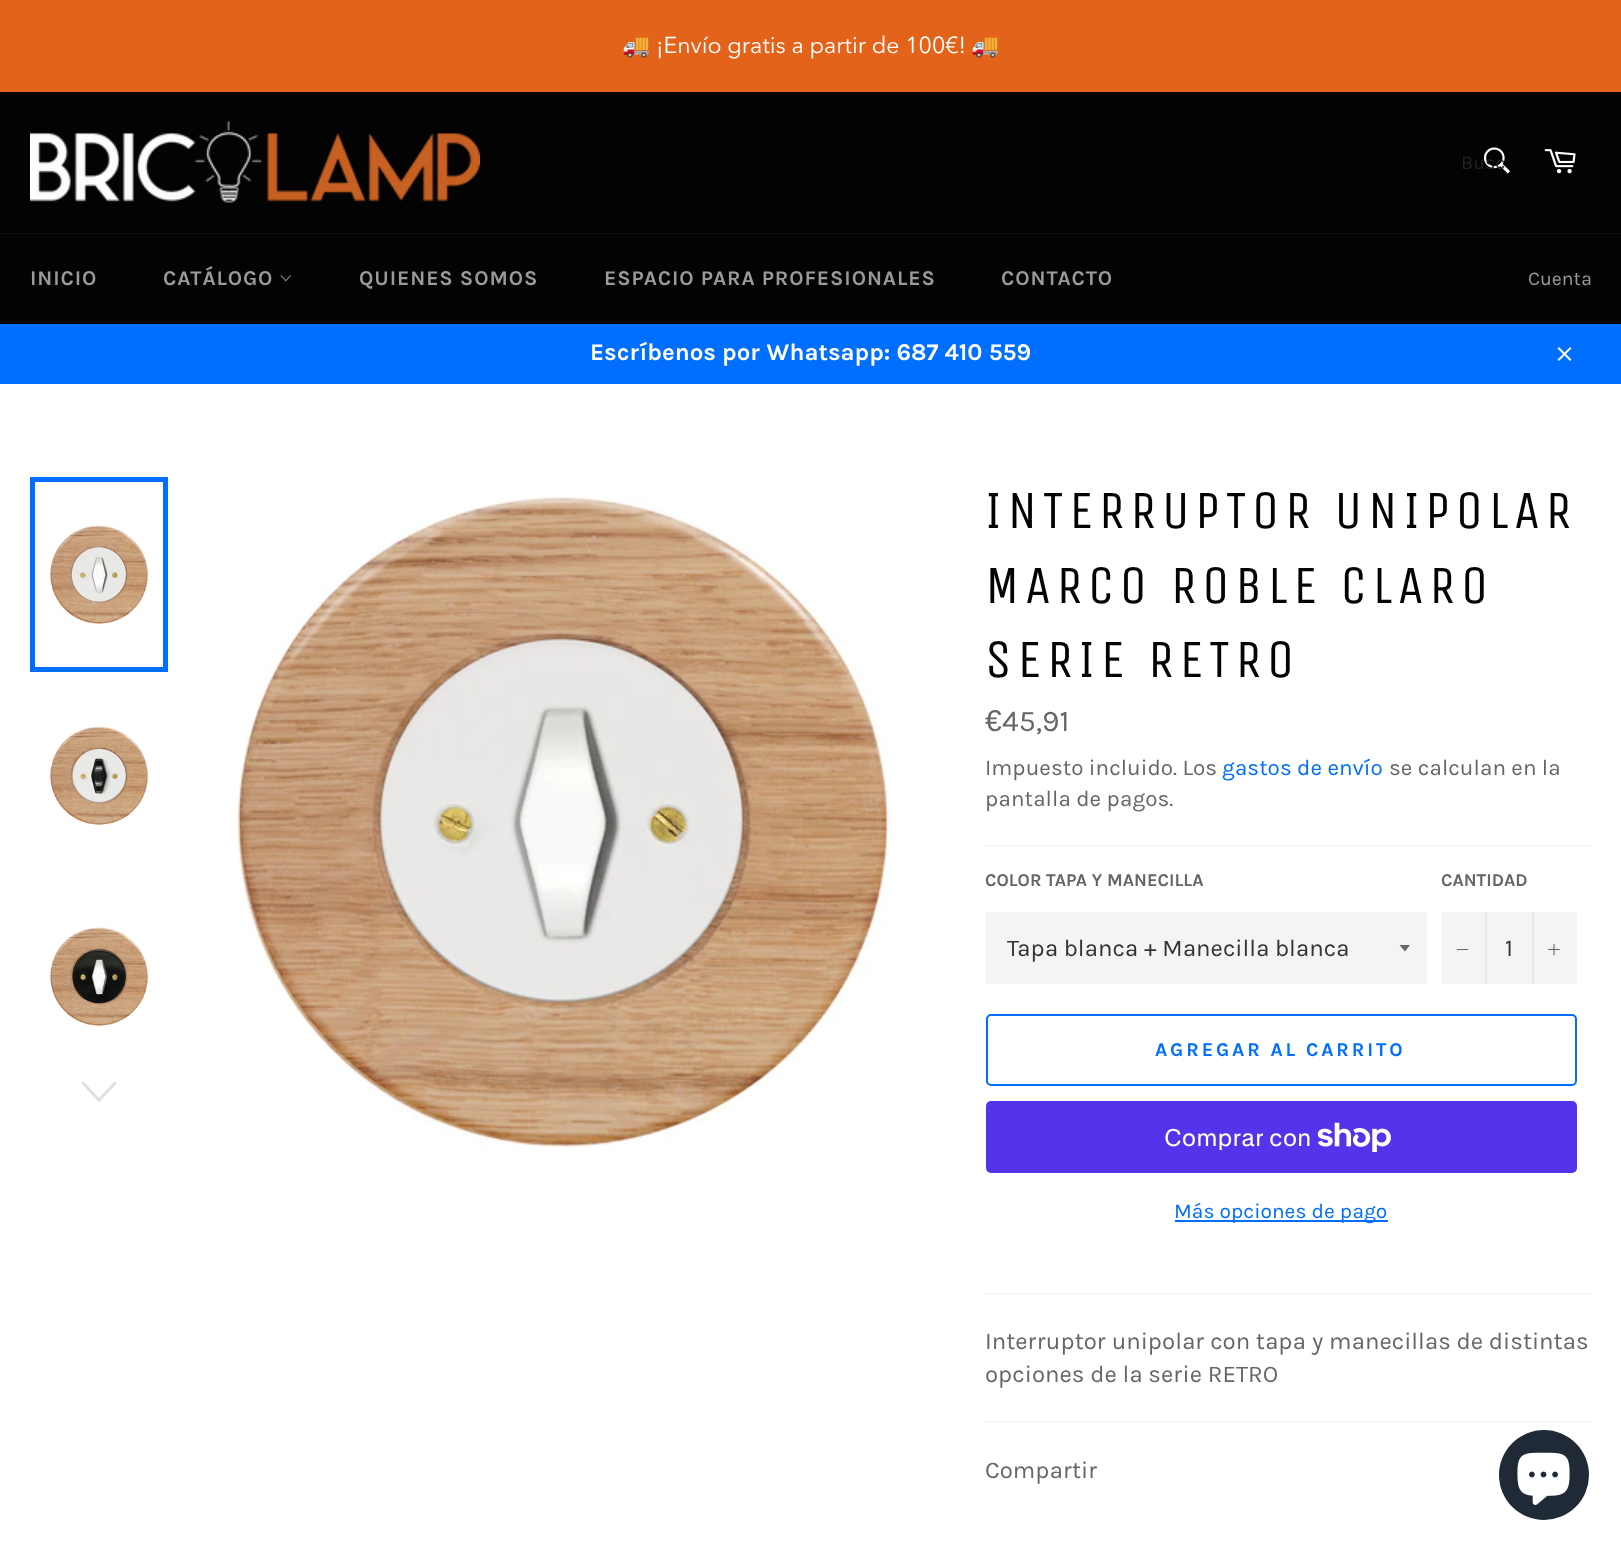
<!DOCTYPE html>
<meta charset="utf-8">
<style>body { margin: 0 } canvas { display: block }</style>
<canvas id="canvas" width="1621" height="1551"></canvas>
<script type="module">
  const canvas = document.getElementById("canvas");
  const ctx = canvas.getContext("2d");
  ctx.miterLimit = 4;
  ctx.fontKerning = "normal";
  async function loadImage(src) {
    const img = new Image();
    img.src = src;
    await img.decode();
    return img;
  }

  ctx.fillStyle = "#e4631b";
  ctx.fillRect(0, 0, 1621, 1551);
  ctx.font = "23px Noto Color Emoji";
  ctx.fillStyle = "#ffffff";
  ctx.fillText("🚚", 622, 53);
  ctx.font = "23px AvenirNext";
  ctx.fillText("¡Envío gratis a partir de 100€!", 656, 53);
  ctx.font = "23px Noto Color Emoji";
  ctx.fillText("🚚", 971, 53);
  ctx.fillStyle = "#030303";
  ctx.fillRect(0, 92, 1621, 141);
  ctx.drawImage(await loadImage("img1.png"), 30, 121, 450, 82);
  ctx.drawImage(await loadImage("img2.png"), 1483, 147, 27, 27);
  ctx.font = "19.5px Karla";
  ctx.fillStyle = "#222222";
  ctx.fillText("Busc", 1461, 169);
  ctx.drawImage(await loadImage("img3.png"), 1544, 149, 32, 25);
  ctx.fillStyle = "#101010";
  ctx.fillRect(0, 233, 1621, 1);
  ctx.fillStyle = "#030303";
  ctx.fillRect(0, 234, 1621, 90);
  ctx.letterSpacing = "0.9px";
  ctx.font = "bold 21px Karla";
  ctx.fillStyle = "#9a9a9a";
  ctx.fillText("INICIO", 30, 285);
  ctx.fillText("CATÁLOGO", 163, 285);
  ctx.drawImage(await loadImage("img4.png"), 280, 275, 11, 7);
  ctx.fillText("QUIENES SOMOS", 359, 285);
  ctx.fillText("ESPACIO PARA PROFESIONALES", 604, 285);
  ctx.fillText("CONTACTO", 1001, 285);
  ctx.letterSpacing = "0px";
  ctx.font = "19.5px Karla";
  ctx.fillText("Cuenta", 1528, 285);
  ctx.fillStyle = "#006eff";
  ctx.fillRect(0, 324, 1621, 60);
  ctx.font = "bold 24px Karla";
  ctx.fillStyle = "#ffffff";
  ctx.fillText("Escríbenos por Whatsapp: 687 410 559", 590, 360);
  ctx.drawImage(await loadImage("img5.png"), 1557, 347, 15, 14);
  ctx.fillRect(0, 384, 1621, 1167);
  ctx.drawImage(await loadImage("img6.png"), 50, 522, 98, 103);
  ctx.strokeStyle = "#006eff";
  ctx.lineWidth = 5;
  ctx.strokeRect(32.5, 479.5, 133, 190);
  ctx.drawImage(await loadImage("img7.png"), 50, 723, 98, 103);
  ctx.drawImage(await loadImage("img8.png"), 50, 924, 99, 103);
  ctx.fillStyle = "#e0e0e0";
  ctx.beginPath();
  ctx.moveTo(114.5, 1081.5);
  ctx.lineTo(116.5, 1083.5);
  ctx.lineTo(99, 1102.5);
  ctx.lineTo(81.5, 1083.5);
  ctx.lineTo(83.5, 1081.5);
  ctx.lineTo(99, 1098);
  ctx.closePath();
  ctx.fill();
  ctx.drawImage(await loadImage("img9.png"), 237, 497, 655, 651);
  ctx.letterSpacing = "5.4px";
  ctx.font = "54px Unica One";
  ctx.fillStyle = "#030303";
  ctx.fillText("INTERRUPTOR UNIPOLAR", 985, 528);
  ctx.fillText("MARCO ROBLE CLARO", 985, 603);
  ctx.fillText("SERIE RETRO", 985, 677);
  ctx.letterSpacing = "0px";
  ctx.font = "30px Liberation Sans";
  ctx.fillStyle = "#666666";
  ctx.fillText("€", 985, 731);
  ctx.font = "30px Karla";
  ctx.fillText("45,91", 1002, 731);
  ctx.font = "22.5px Karla";
  ctx.fillText("Impuesto incluido. Los", 985, 775);
  ctx.fillStyle = "#006eff";
  ctx.fillText("gastos de envío", 1222, 775);
  ctx.fillStyle = "#666666";
  ctx.fillText("se calculan en la", 1389, 775);
  ctx.fillText("pantalla de pagos.", 985, 806);
  ctx.fillStyle = "#f7f7f7";
  ctx.fillRect(986, 845, 606, 2);
  ctx.font = "bold 18px Karla";
  ctx.fillStyle = "#666666";
  ctx.fillText("COLOR TAPA Y MANECILLA", 985, 886);
  ctx.fillStyle = "#f4f4f4";
  ctx.fillRect(986, 912, 441, 72);
  ctx.fillStyle = "#666666";
  ctx.beginPath();
  ctx.moveTo(1399.5, 945);
  ctx.lineTo(1405, 951.5);
  ctx.lineTo(1410, 945);
  ctx.closePath();
  ctx.fill();
  ctx.font = "24px Karla";
  ctx.fillStyle = "#333333";
  ctx.fillText("Tapa blanca + Manecilla blanca", 1007, 956);
  ctx.font = "bold 18px Karla";
  ctx.fillStyle = "#666666";
  ctx.fillText("CANTIDAD", 1441, 886);
  ctx.fillStyle = "#f4f4f4";
  ctx.fillRect(1442, 912, 135, 72);
  ctx.fillStyle = "#e7e7e7";
  ctx.fillRect(1485, 912, 2, 72);
  ctx.fillStyle = "#666666";
  ctx.fillRect(1457, 949, 11, 1);
  ctx.font = "24px Karla";
  ctx.fillStyle = "#333333";
  ctx.fillText("1", 1505, 956);
  ctx.fillStyle = "#e7e7e7";
  ctx.fillRect(1532, 912, 2, 72);
  ctx.drawImage(await loadImage("img10.png"), 1548, 944, 12, 12);
  ctx.beginPath();
  ctx.roundRect(987, 1015, 589, 70, 4);
  ctx.lineWidth = 2;
  ctx.stroke();
  ctx.letterSpacing = "2.9px";
  ctx.font = "bold 19.5px Karla";
  ctx.fillStyle = "#006eff";
  ctx.fillText("AGREGAR AL CARRITO", 1155, 1056);
  ctx.fillStyle = "#5433eb";
  ctx.beginPath();
  ctx.roundRect(986, 1101, 591, 72, 5);
  ctx.fill();
  ctx.letterSpacing = "0px";
  ctx.font = "24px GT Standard";
  ctx.fillStyle = "#ffffff";
  ctx.fillText("Comprar con", 1164, 1146);
  ctx.drawImage(await loadImage("img11.png"), 1317, 1122, 74, 30);
  ctx.fillStyle = "#006eff";
  ctx.fillRect(1175, 1220, 213, 2);
  ctx.font = "21px Karla";
  ctx.fillText("Más opciones de pago", 1174, 1218);
  ctx.fillStyle = "#f7f7f7";
  ctx.fillRect(986, 1293, 606, 2);
  ctx.font = "24px Karla";
  ctx.fillStyle = "#666666";
  ctx.fillText("Interruptor unipolar con tapa y manecillas de distintas", 985, 1349);
  ctx.fillText("opciones de la serie RETRO", 985, 1382);
  ctx.fillStyle = "#f7f7f7";
  ctx.fillRect(986, 1421, 606, 2);
  ctx.fillStyle = "#666666";
  ctx.fillText("Compartir", 985, 1478);
  ctx.fillStyle = "#202a36";
  ctx.beginPath();
  ctx.arc(1544, 1475, 45, 0, Math.PI * 2);
  ctx.fill();
  ctx.drawImage(await loadImage("img12.png"), 1517, 1452, 53, 53);
</script>
